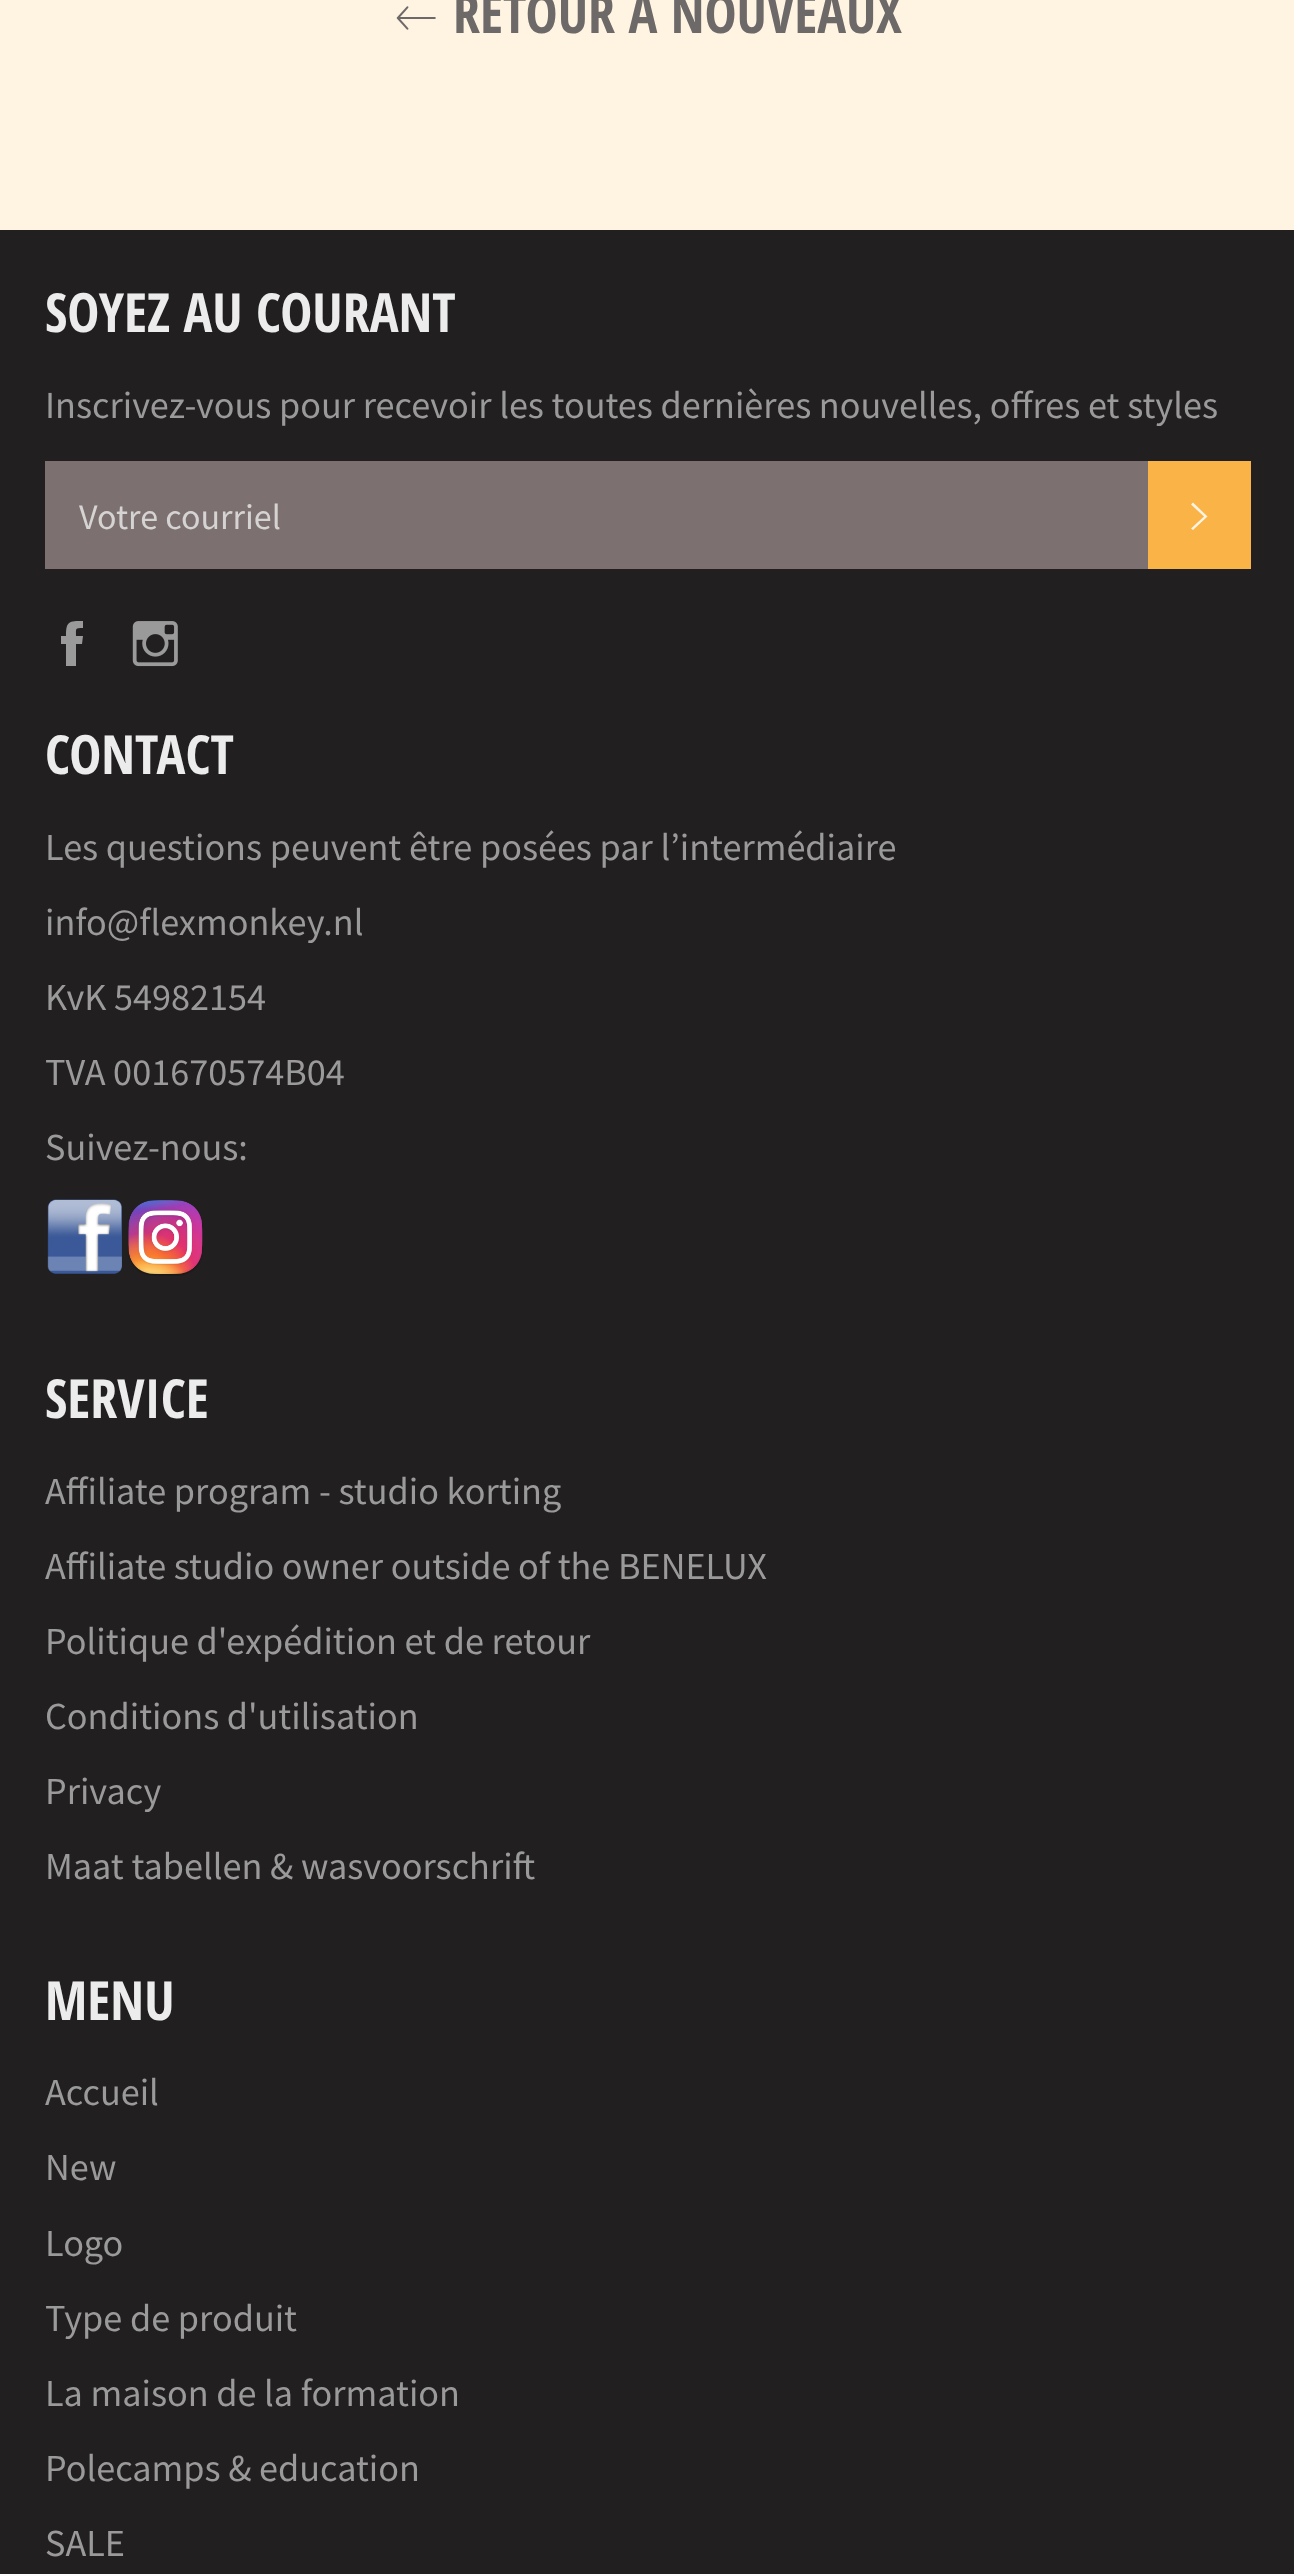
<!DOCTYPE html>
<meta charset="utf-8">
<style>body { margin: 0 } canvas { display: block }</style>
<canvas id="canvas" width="1294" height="2574"></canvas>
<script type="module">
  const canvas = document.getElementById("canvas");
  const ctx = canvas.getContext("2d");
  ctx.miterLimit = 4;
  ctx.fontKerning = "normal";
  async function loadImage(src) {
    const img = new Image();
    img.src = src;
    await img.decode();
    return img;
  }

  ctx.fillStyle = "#fff3e1";
  ctx.fillRect(0, 0, 1294, 2574);
  ctx.drawImage(await loadImage("img1.png"), 396, 6, 40, 24);
  ctx.font = "bold 54px Open Sans Condensed";
  ctx.fillStyle = "#6d6969";
  ctx.fillText("RETOUR À NOUVEAUX", 453, 33);
  ctx.fillStyle = "#211f1f";
  ctx.fillRect(0, 230, 1294, 2344);
  ctx.fillStyle = "#ececec";
  ctx.fillText("SOYEZ AU COURANT", 45, 332);
  ctx.font = "38.25px Source Sans Pro";
  ctx.fillStyle = "#9b9a9a";
  ctx.fillText("Inscrivez-vous pour recevoir les toutes dernières nouvelles, offres et styles", 45, 418);
  ctx.fillStyle = "#7c7070";
  ctx.fillRect(45, 461, 1103, 108);
  ctx.font = "36px Source Sans Pro";
  ctx.fillStyle = "#d6d3d3";
  ctx.fillText("Votre courriel", 79, 529);
  ctx.fillStyle = "#f9b346";
  ctx.fillRect(1148, 461, 103, 108);
  ctx.fillStyle = "#fff3e1";
  ctx.beginPath();
  ctx.moveTo(1191, 504.5);
  ctx.lineTo(1193, 502.5);
  ctx.lineTo(1207.5, 516.5);
  ctx.lineTo(1193, 530);
  ctx.lineTo(1191, 528.5);
  ctx.lineTo(1204, 516.5);
  ctx.closePath();
  ctx.fill();
  ctx.fillStyle = "#9b9a9a";
  ctx.beginPath();
  ctx.moveTo(76, 636);
  ctx.bezierCurveTo(76, 628, 75, 628, 83, 628);
  ctx.lineTo(83, 621);
  ctx.bezierCurveTo(69, 621, 66, 621, 66, 636);
  ctx.lineTo(61, 636);
  ctx.lineTo(61, 644);
  ctx.lineTo(66, 644);
  ctx.lineTo(66, 666);
  ctx.lineTo(76, 666);
  ctx.lineTo(76, 644);
  ctx.lineTo(82, 644);
  ctx.lineTo(83, 636);
  ctx.closePath();
  ctx.fill();
  ctx.drawImage(await loadImage("img2.png"), 132, 621, 46, 46);
  ctx.font = "bold 54px Open Sans Condensed";
  ctx.fillStyle = "#ececec";
  ctx.fillText("CONTACT", 45, 774);
  ctx.font = "38.25px Source Sans Pro";
  ctx.fillStyle = "#9b9a9a";
  ctx.fillText("Les questions peuvent être posées par l’intermédiaire", 45, 860);
  ctx.fillText("info@flexmonkey.nl", 45, 935);
  ctx.fillText("KvK 54982154", 45, 1010);
  ctx.fillText("TVA 001670574B04", 45, 1085);
  ctx.fillText("Suivez-nous:", 45, 1160);
  ctx.drawImage(await loadImage("img3.png"), 47, 1199, 75, 75);
  ctx.drawImage(await loadImage("img4.png"), 128, 1200, 75, 76);
  ctx.font = "bold 54px Open Sans Condensed";
  ctx.fillStyle = "#ececec";
  ctx.fillText("SERVICE", 45, 1418);
  ctx.font = "38.25px Source Sans Pro";
  ctx.fillStyle = "#9b9a9a";
  ctx.fillText("Affiliate program - studio korting", 45, 1504);
  ctx.fillText("Affiliate studio owner outside of the BENELUX", 45, 1579);
  ctx.fillText("Politique d'expédition et de retour", 45, 1654);
  ctx.fillText("Conditions d'utilisation", 45, 1729);
  ctx.fillText("Privacy", 45, 1804);
  ctx.fillText("Maat tabellen & wasvoorschrift", 45, 1879);
  ctx.font = "bold 54px Open Sans Condensed";
  ctx.fillStyle = "#ececec";
  ctx.fillText("MENU", 45, 2020);
  ctx.font = "38.25px Source Sans Pro";
  ctx.fillStyle = "#9b9a9a";
  ctx.fillText("Accueil", 45, 2105);
  ctx.fillText("New", 45, 2180);
  ctx.fillText("Logo", 45, 2256);
  ctx.fillText("Type de produit", 45, 2331);
  ctx.fillText("La maison de la formation", 45, 2406);
  ctx.fillText("Polecamps & education", 45, 2481);
  ctx.fillText("SALE", 45, 2556);
</script>
